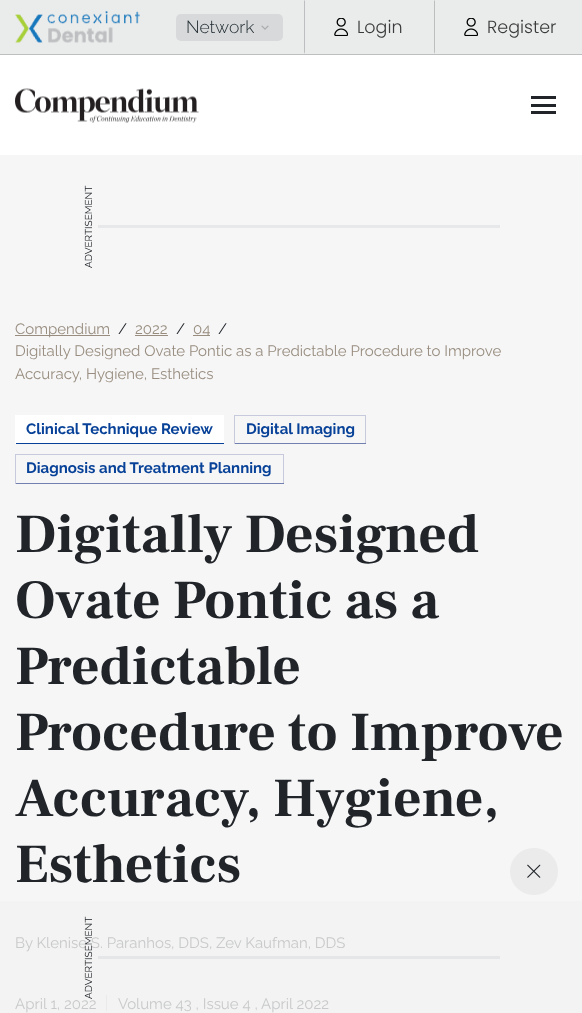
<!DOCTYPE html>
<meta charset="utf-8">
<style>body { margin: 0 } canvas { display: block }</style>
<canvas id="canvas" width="582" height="1013"></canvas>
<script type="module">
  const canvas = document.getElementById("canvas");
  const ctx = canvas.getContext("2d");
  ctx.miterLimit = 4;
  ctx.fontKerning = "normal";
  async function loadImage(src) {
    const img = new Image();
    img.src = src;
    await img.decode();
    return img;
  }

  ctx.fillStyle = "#f6f6f7";
  ctx.fillRect(0, 0, 582, 1013);
  ctx.fillStyle = "#eaebeb";
  ctx.fillRect(0, 0, 582, 54);
  ctx.fillStyle = "#bcbec0";
  ctx.fillRect(0, 54, 582, 1);
  ctx.drawImage(await loadImage("img1.png"), 15, 11, 125, 32);
  ctx.fillStyle = "#d8d9da";
  ctx.beginPath();
  ctx.roundRect(176, 14, 107, 27, 5);
  ctx.fill();
  ctx.font = "300 17.5px Raleway";
  ctx.fillStyle = "#222d33";
  ctx.fillText("Network", 186, 33);
  ctx.drawImage(await loadImage("img2.png"), 261, 25, 8, 5);
  ctx.fillStyle = "#bcbec0";
  ctx.beginPath();
  ctx.moveTo(304, 54);
  ctx.lineTo(304, 0);
  ctx.lineTo(305, 1);
  ctx.lineTo(305, 52);
  ctx.closePath();
  ctx.fill();
  ctx.drawImage(await loadImage("img3.png"), 334, 18, 14, 18);
  ctx.font = "300 17.5px Poppins";
  ctx.fillStyle = "#3b3b3c";
  ctx.fillText("Login", 357, 33);
  ctx.fillStyle = "#bcbec0";
  ctx.beginPath();
  ctx.moveTo(434, 54);
  ctx.lineTo(434, 0);
  ctx.lineTo(435, 1);
  ctx.lineTo(435, 52);
  ctx.closePath();
  ctx.fill();
  ctx.drawImage(await loadImage("img4.png"), 464, 18, 14, 18);
  ctx.fillStyle = "#3b3b3c";
  ctx.fillText("Register", 487, 33);
  ctx.fillStyle = "#ffffff";
  ctx.fillRect(0, 55, 582, 100);
  ctx.drawImage(await loadImage("img5.png"), 15, 88, 184, 35);
  ctx.fillStyle = "#212529";
  ctx.fillRect(531, 96, 25, 3);
  ctx.fillRect(531, 111, 25, 3);
  ctx.fillRect(531, 104, 25, 3);
  ctx.fillStyle = "#f3f3f3";
  ctx.fillRect(0, 901, 582, 112);
  ctx.font = "10px Raleway";
  ctx.fillStyle = "#212529";
  ctx.save();
  ctx.translate(92, 268);
  ctx.rotate(-90 * Math.PI / 180);
  ctx.fillText("ADVERTISEMENT", 0, 0);
  ctx.restore();
  ctx.fillStyle = "#e7e8e9";
  ctx.fillRect(98, 225, 402, 3);
  ctx.fillStyle = "#988d7f";
  ctx.fillRect(15, 335, 95, 1);
  ctx.font = "15px Raleway";
  ctx.fillText("Compendium", 15, 334);
  ctx.fillStyle = "#212529";
  ctx.fillText("/", 118, 334);
  ctx.fillStyle = "#988d7f";
  ctx.fillText("2022", 135, 334);
  ctx.fillRect(135, 335, 33, 1);
  ctx.fillStyle = "#212529";
  ctx.fillText("/", 176, 334);
  ctx.fillStyle = "#988d7f";
  ctx.fillRect(193, 335, 17, 1);
  ctx.fillText("04", 193, 334);
  ctx.fillStyle = "#212529";
  ctx.fillText("/", 218, 334);
  ctx.fillStyle = "#988d7f";
  ctx.fillText("Digitally Designed Ovate Pontic as a Predictable Procedure to Improve", 15, 356);
  ctx.fillText("Accuracy, Hygiene, Esthetics", 15, 379);
  ctx.fillStyle = "#ffffff";
  ctx.fillRect(16, 415, 208, 28);
  ctx.fillStyle = "#084298";
  ctx.fillRect(15, 443, 209, 1);
  ctx.fillStyle = "#ffffff";
  ctx.fillRect(15, 415, 1, 29);
  ctx.font = "bold 15px Raleway";
  ctx.fillStyle = "#084298";
  ctx.fillText("Clinical Technique Review", 26, 434);
  ctx.fillStyle = "#c6cadc";
  ctx.fillRect(234, 415, 132, 1);
  ctx.fillRect(365, 415, 1, 29);
  ctx.fillStyle = "#7280b1";
  ctx.fillRect(234, 443, 132, 1);
  ctx.fillStyle = "#c6cadc";
  ctx.fillRect(234, 415, 1, 29);
  ctx.fillStyle = "#084298";
  ctx.fillText("Digital Imaging", 246, 434);
  ctx.fillStyle = "#c6cadc";
  ctx.fillRect(15, 454, 269, 1);
  ctx.fillRect(283, 454, 1, 30);
  ctx.fillStyle = "#7280b1";
  ctx.fillRect(15, 483, 269, 1);
  ctx.fillStyle = "#c6cadc";
  ctx.fillRect(15, 454, 1, 30);
  ctx.fillStyle = "#084298";
  ctx.fillText("Diagnosis and Treatment Planning", 26, 473);
  ctx.font = "bold 55px Frank Ruhl Libre";
  ctx.fillStyle = "#212529";
  ctx.fillText("Digitally Designed", 15, 552);
  ctx.fillText("Ovate Pontic as a", 15, 618);
  ctx.fillText("Predictable", 15, 684);
  ctx.fillText("Procedure to Improve", 15, 750);
  ctx.fillText("Accuracy, Hygiene,", 15, 816);
  ctx.fillText("Esthetics", 15, 882);
  ctx.font = "15px Raleway";
  ctx.fillStyle = "#c8c9ca";
  ctx.fillText("By Klenise S. Paranhos, DDS, Zev Kaufman, DDS", 15, 948);
  ctx.fillText("April 1, 2022", 15, 1009);
  ctx.fillStyle = "#eaeaea";
  ctx.fillRect(106, 995, 1, 16);
  ctx.fillStyle = "#c8c9ca";
  ctx.fillText("Volume 43 , Issue 4 ,", 118, 1009);
  ctx.fillText("April 2022", 261, 1009);
  ctx.fillStyle = "#ebebeb";
  ctx.beginPath();
  ctx.roundRect(510, 848, 48, 47, 23.5);
  ctx.fill();
  ctx.drawImage(await loadImage("img6.png"), 527, 864, 14, 14);
  ctx.font = "10px Raleway";
  ctx.fillStyle = "#212529";
  ctx.save();
  ctx.translate(92, 999);
  ctx.rotate(-90 * Math.PI / 180);
  ctx.fillText("ADVERTISEMENT", 0, 0);
  ctx.restore();
  ctx.fillStyle = "#e5e6e7";
  ctx.fillRect(98, 956, 402, 3);
</script>
